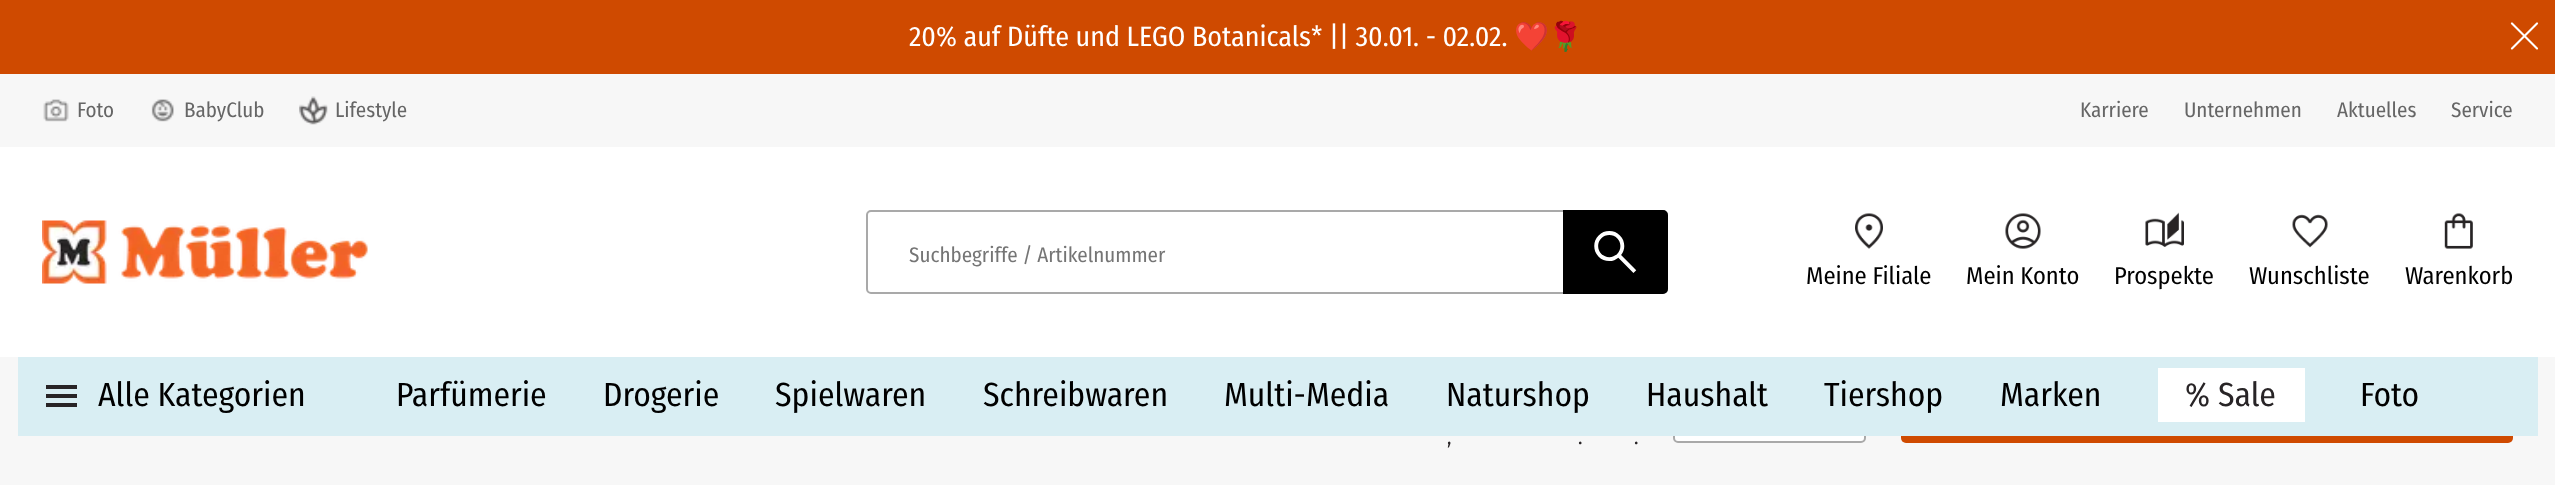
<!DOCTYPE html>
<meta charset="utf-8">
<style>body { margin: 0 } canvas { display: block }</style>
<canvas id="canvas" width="2555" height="485"></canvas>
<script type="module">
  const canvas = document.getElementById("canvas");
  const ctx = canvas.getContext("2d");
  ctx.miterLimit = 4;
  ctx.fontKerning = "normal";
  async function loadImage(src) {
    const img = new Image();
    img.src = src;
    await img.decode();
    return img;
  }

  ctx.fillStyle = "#cf4a00";
  ctx.fillRect(0, 0, 2555, 485);
  ctx.font = "28px Fira Sans Condensed";
  ctx.fillStyle = "#ffffff";
  ctx.fillText("20% auf Düfte und LEGO Botanicals* || 30.01. - 02.02.", 909, 46);
  ctx.font = "28px Noto Color Emoji";
  ctx.fillText("❤️🌹", 1514, 46);
  ctx.drawImage(await loadImage("img1.png"), 2510, 22, 29, 28);
  ctx.fillStyle = "#f7f7f7";
  ctx.fillRect(0, 74, 2555, 73);
  ctx.drawImage(await loadImage("img2.png"), 43, 99, 26, 23);
  ctx.font = "21px Fira Sans Condensed";
  ctx.fillStyle = "#666666";
  ctx.fillText("Foto", 77, 117);
  ctx.drawImage(await loadImage("img3.png"), 151, 99, 23, 23);
  ctx.fillText("BabyClub", 184, 117);
  ctx.drawImage(await loadImage("img4.png"), 299, 96, 29, 29);
  ctx.fillText("Lifestyle", 335, 117);
  ctx.fillText("Karriere", 2080, 117);
  ctx.fillText("Unternehmen", 2184, 117);
  ctx.fillText("Aktuelles", 2337, 117);
  ctx.fillText("Service", 2451, 117);
  ctx.fillStyle = "#ffffff";
  ctx.fillRect(0, 147, 2555, 210);
  ctx.drawImage(await loadImage("img5.png"), 42, 220, 326, 64);
  ctx.beginPath();
  ctx.roundRect(867, 211, 800, 82, 4);
  ctx.strokeStyle = "#a9a9a9";
  ctx.lineWidth = 2;
  ctx.stroke();
  ctx.fillStyle = "#757575";
  ctx.fillText("Suchbegriffe / Artikelnummer", 909, 262);
  ctx.fillStyle = "#000000";
  ctx.beginPath();
  ctx.roundRect(1564, 211, 103, 82, [0, 4, 4, 0]);
  ctx.fill();
  ctx.strokeStyle = "#000000";
  ctx.stroke();
  ctx.drawImage(await loadImage("img6.png"), 1594, 231, 43, 42);
  ctx.drawImage(await loadImage("img7.png"), 1855, 213, 28, 36);
  ctx.font = "24.5px Fira Sans Condensed";
  ctx.fillText("Meine Filiale", 1806, 284);
  ctx.drawImage(await loadImage("img8.png"), 2005, 213, 36, 36);
  ctx.fillText("Mein Konto", 1966, 284);
  ctx.drawImage(await loadImage("img9.png"), 2145, 212, 39, 35);
  ctx.fillText("Prospekte", 2114, 284);
  ctx.drawImage(await loadImage("img10.png"), 2292, 214, 36, 34);
  ctx.fillText("Wunschliste", 2249, 284);
  ctx.drawImage(await loadImage("img11.png"), 2444, 213, 29, 36);
  ctx.fillText("Warenkorb", 2405, 284);
  ctx.fillStyle = "#f7f7f7";
  ctx.fillRect(0, 357, 2555, 128);
  ctx.fillStyle = "#ffffff";
  ctx.beginPath();
  ctx.roundRect(1674, 360, 191, 82, 4);
  ctx.fill();
  ctx.strokeStyle = "#a9a9a9";
  ctx.stroke();
  ctx.fillStyle = "#cf4a00";
  ctx.beginPath();
  ctx.roundRect(1901, 359, 612, 84, 5);
  ctx.fill();
  ctx.fillStyle = "#d9eef3";
  ctx.fillRect(18, 357, 2520, 79);
  ctx.fillStyle = "#282426";
  ctx.fillRect(46, 385, 31, 4);
  ctx.fillRect(46, 403, 31, 4);
  ctx.fillRect(46, 394, 31, 4);
  ctx.font = "33.5px Fira Sans Condensed";
  ctx.fillStyle = "#000000";
  ctx.fillText("Alle Kategorien", 98, 406);
  ctx.fillText("Parfümerie", 396, 406);
  ctx.fillText("Drogerie", 603, 406);
  ctx.fillText("Spielwaren", 775, 406);
  ctx.fillText("Schreibwaren", 983, 406);
  ctx.fillText("Multi-Media", 1224, 406);
  ctx.fillText("Naturshop", 1446, 406);
  ctx.fillText("Haushalt", 1646, 406);
  ctx.fillText("Tiershop", 1824, 406);
  ctx.fillText("Marken", 2000, 406);
  ctx.fillStyle = "#ffffff";
  ctx.fillRect(2158, 368, 147, 54);
  ctx.fillStyle = "#282426";
  ctx.fillText("% Sale", 2185, 406);
  ctx.fillStyle = "#000000";
  ctx.fillText("Foto", 2360, 406);
  ctx.font = "21px Fira Sans Condensed";
  ctx.fillStyle = "#282426";
  ctx.fillText(",", 1447, 444);
  ctx.fillText(".", 1578, 444);
  ctx.fillText(".", 1634, 444);
</script>
